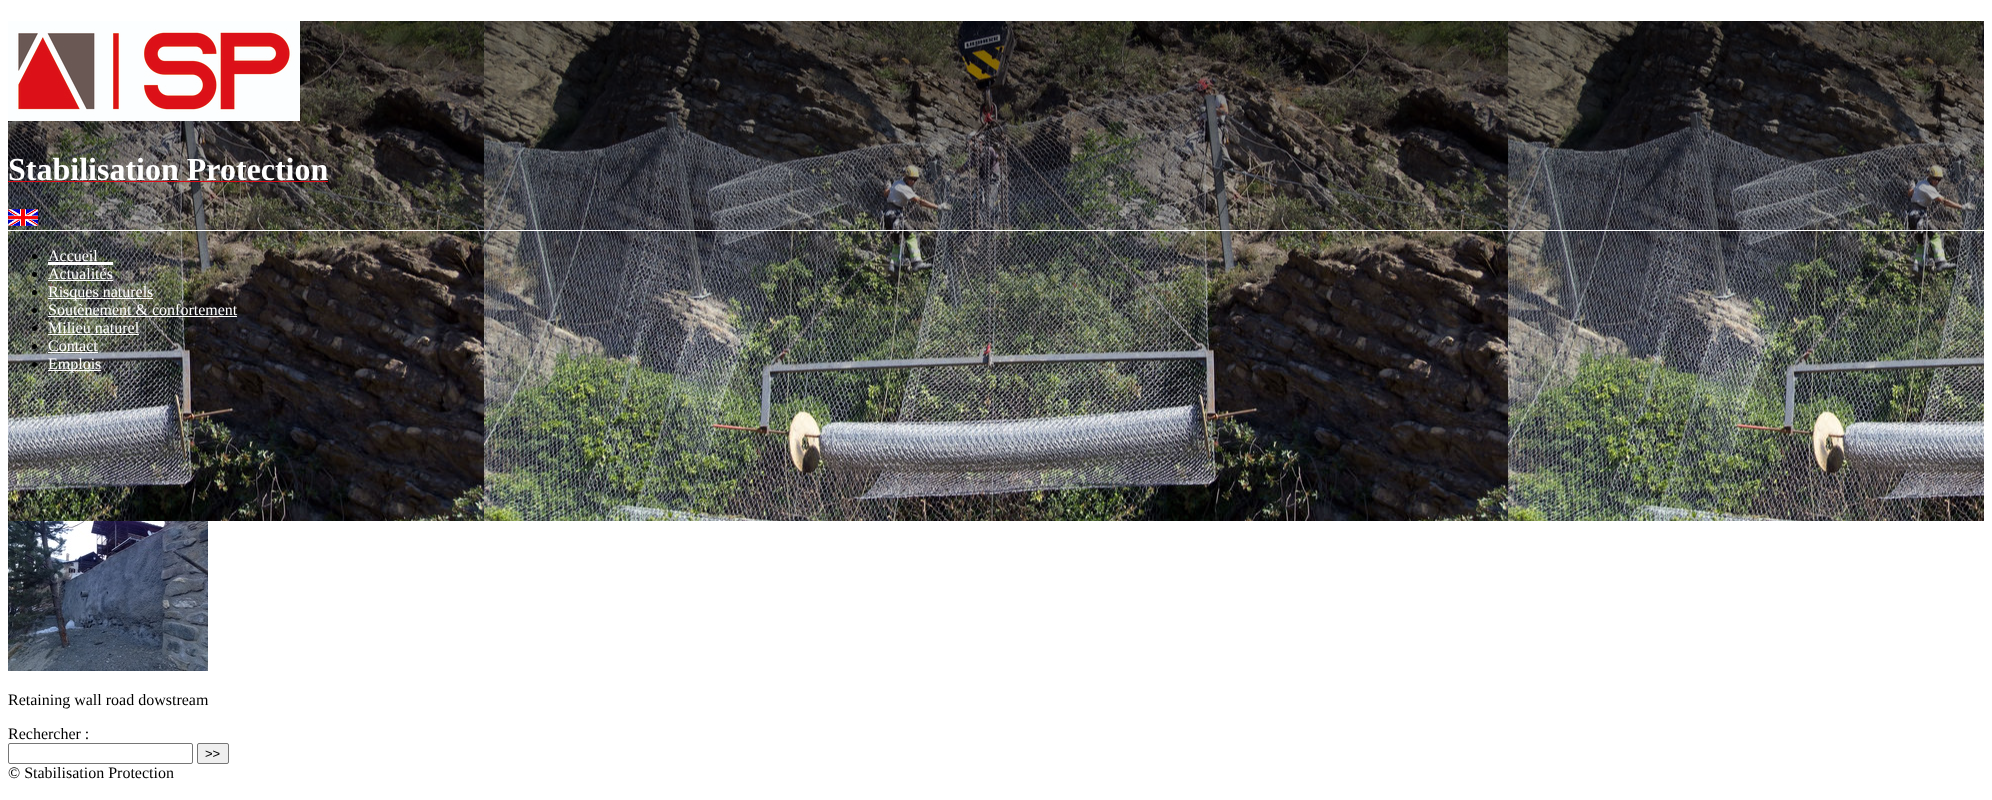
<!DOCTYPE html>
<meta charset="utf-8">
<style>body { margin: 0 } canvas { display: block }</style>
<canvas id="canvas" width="1992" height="800"></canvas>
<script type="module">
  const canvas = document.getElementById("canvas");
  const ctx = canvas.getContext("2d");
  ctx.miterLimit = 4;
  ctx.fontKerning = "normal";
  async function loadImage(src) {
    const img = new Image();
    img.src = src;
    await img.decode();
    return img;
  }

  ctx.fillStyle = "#ffffff";
  ctx.fillRect(0, 0, 1992, 800);
  ctx.drawImage(await loadImage("img1.png"), 8, 21, 1976, 500);
  ctx.drawImage(await loadImage("img2.png"), 8, 21, 292, 100);
  ctx.font = "bold 32px Liberation Serif";
  ctx.fillText("Stabilisation Protection", 8, 180);
  ctx.fillStyle = "#dc0814";
  ctx.fillRect(8, 181, 320, 1);
  ctx.drawImage(await loadImage("img3.png"), 8, 209, 30, 17);
  ctx.fillStyle = "#ffffff";
  ctx.fillRect(8, 230, 1976, 1);
  ctx.fillStyle = "#000000";
  ctx.beginPath();
  ctx.arc(34.5, 256.5, 2.5, 0, Math.PI * 2);
  ctx.fill();
  ctx.font = "16px Liberation Serif";
  ctx.fillStyle = "#ffffff";
  ctx.fillText("Accueil", 48, 261);
  ctx.fillStyle = "#000000";
  ctx.beginPath();
  ctx.arc(34.5, 274.5, 2.5, 0, Math.PI * 2);
  ctx.fill();
  ctx.fillStyle = "#ffffff";
  ctx.fillText("Actualités", 48, 279);
  ctx.fillRect(48, 262, 65, 3);
  ctx.fillRect(48, 280, 65, 1);
  ctx.fillStyle = "#000000";
  ctx.beginPath();
  ctx.arc(34.5, 292.5, 2.5, 0, Math.PI * 2);
  ctx.fill();
  ctx.fillStyle = "#ffffff";
  ctx.fillRect(48, 298, 105, 1);
  ctx.fillText("Risques naturels", 48, 297);
  ctx.fillStyle = "#000000";
  ctx.beginPath();
  ctx.arc(34.5, 310.5, 2.5, 0, Math.PI * 2);
  ctx.fill();
  ctx.fillStyle = "#ffffff";
  ctx.fillText("Soutènement & confortement", 48, 315);
  ctx.fillRect(48, 316, 189, 1);
  ctx.fillStyle = "#000000";
  ctx.beginPath();
  ctx.arc(34.5, 328.5, 2.5, 0, Math.PI * 2);
  ctx.fill();
  ctx.fillStyle = "#ffffff";
  ctx.fillText("Milieu naturel", 48, 333);
  ctx.fillRect(48, 334, 91, 1);
  ctx.fillStyle = "#000000";
  ctx.beginPath();
  ctx.arc(34.5, 346.5, 2.5, 0, Math.PI * 2);
  ctx.fill();
  ctx.fillStyle = "#ffffff";
  ctx.fillText("Contact", 48, 351);
  ctx.fillRect(48, 352, 50, 1);
  ctx.fillStyle = "#000000";
  ctx.beginPath();
  ctx.arc(34.5, 364.5, 2.5, 0, Math.PI * 2);
  ctx.fill();
  ctx.fillStyle = "#ffffff";
  ctx.fillRect(48, 370, 53, 1);
  ctx.fillText("Emplois", 48, 369);
  ctx.drawImage(await loadImage("img4.png"), 8, 521, 200, 150);
  ctx.fillStyle = "#000000";
  ctx.fillText("Retaining wall road dowstream", 8, 705);
  ctx.fillText("Rechercher :", 8, 739);
  ctx.beginPath();
  ctx.roundRect(8.5, 743.5, 184, 20, 1.5);
  ctx.strokeStyle = "#767676";
  ctx.stroke();
  ctx.fillStyle = "#efefef";
  ctx.beginPath();
  ctx.roundRect(197.5, 743.5, 31, 20, 1.5);
  ctx.fill();
  ctx.stroke();
  ctx.font = "13px Liberation Sans";
  ctx.fillStyle = "#000000";
  ctx.fillText(">>", 205, 758);
  ctx.font = "16px Liberation Serif";
  ctx.fillText("© Stabilisation Protection", 8, 778);
</script>
